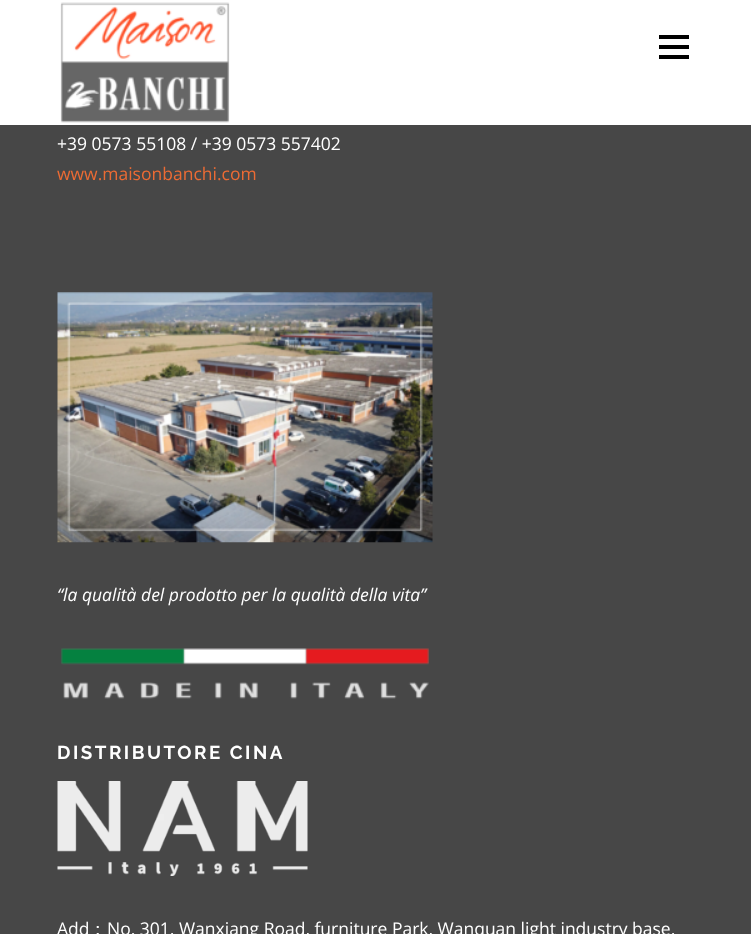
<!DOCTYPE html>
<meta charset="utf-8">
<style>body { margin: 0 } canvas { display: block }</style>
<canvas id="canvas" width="751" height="934"></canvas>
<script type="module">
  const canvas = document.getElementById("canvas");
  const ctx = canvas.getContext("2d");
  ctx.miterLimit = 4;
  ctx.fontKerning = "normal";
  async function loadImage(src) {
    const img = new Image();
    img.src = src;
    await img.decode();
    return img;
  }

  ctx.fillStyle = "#474747";
  ctx.fillRect(0, 0, 751, 934);
  ctx.fillStyle = "#ffffff";
  ctx.fillRect(0, 0, 751, 125);
  ctx.drawImage(await loadImage("img1.png"), 60, 2, 170, 121);
  ctx.fillStyle = "#000000";
  ctx.fillRect(659, 45, 30, 4);
  ctx.fillRect(659, 35, 30, 4);
  ctx.fillRect(659, 55, 30, 4);
  ctx.font = "17.5px Open Sans";
  ctx.fillStyle = "#ffffff";
  ctx.fillText("+39 0573 55108 / +39 0573 557402", 57, 150);
  ctx.fillStyle = "#ec6b34";
  ctx.fillText("www.maisonbanchi.com", 57, 180);
  ctx.drawImage(await loadImage("img2.png"), 57, 292, 376, 251);
  ctx.font = "italic 17.5px Open Sans";
  ctx.fillStyle = "#ffffff";
  ctx.fillText("“la qualità del prodotto per la qualità della vita”", 57, 601);
  ctx.drawImage(await loadImage("img3.png"), 61, 648, 368, 51);
  ctx.letterSpacing = "2.5px";
  ctx.font = "bold 18.75px Raleway";
  ctx.fillText("DISTRIBUTORE CINA", 57, 759);
  ctx.drawImage(await loadImage("img4.png"), 57, 781, 251, 95);
  ctx.letterSpacing = "0px";
  ctx.font = "17.5px Open Sans";
  ctx.fillText("Add", 57, 935);
  ctx.font = "500 17.5px WenQuanYi Zen Hei";
  ctx.fillText("：", 89, 935);
  ctx.font = "17.5px Open Sans";
  ctx.fillText("No. 301, Wanxiang Road, furniture Park, Wanquan light industry base,", 107, 935);
</script>
